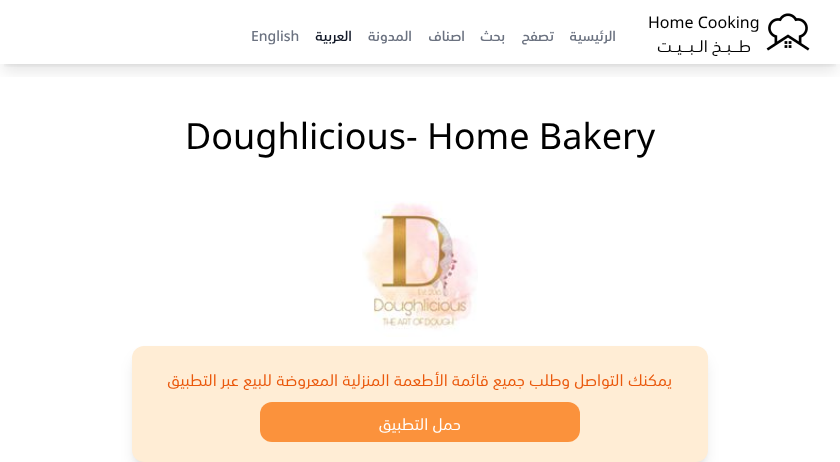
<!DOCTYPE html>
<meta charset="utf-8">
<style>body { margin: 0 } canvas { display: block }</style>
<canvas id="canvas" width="840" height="462"></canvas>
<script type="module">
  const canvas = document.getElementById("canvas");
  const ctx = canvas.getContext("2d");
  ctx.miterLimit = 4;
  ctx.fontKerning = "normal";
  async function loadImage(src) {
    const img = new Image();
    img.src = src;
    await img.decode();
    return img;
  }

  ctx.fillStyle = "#ffffff";
  ctx.fillRect(0, 0, 840, 462);
  ctx.save();
  ctx.beginPath();
  ctx.rect(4, 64, 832, 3);
  ctx.clip();
  ctx.fillStyle = "rgba(0, 0, 0, 0.1)";
  ctx.filter = "blur(3px)";
  ctx.beginPath();
  ctx.rect(4, 8, 832, 56);
  ctx.fill();
  ctx.filter = "none";
  ctx.restore();
  ctx.save();
  ctx.beginPath();
  ctx.rect(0, 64, 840, 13);
  ctx.clip();
  ctx.fillStyle = "rgba(0, 0, 0, 0.1)";
  ctx.filter = "blur(7.5px)";
  ctx.beginPath();
  ctx.rect(3, 13, 834, 58);
  ctx.fill();
  ctx.filter = "none";
  ctx.restore();
  ctx.drawImage(await loadImage("img1.png"), 766, 13, 44, 38);
  ctx.font = "16px Noto Sans";
  ctx.fillStyle = "#000000";
  ctx.fillText("Home Cooking", 648, 28);
  ctx.direction = "rtl";
  ctx.font = "16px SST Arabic";
  ctx.fillText("طـــبــخ الــبـــيــت", 751, 52);
  ctx.font = "500 14px SST Arabic";
  ctx.fillStyle = "#6b7280";
  ctx.fillText("الرئيسية", 616, 41);
  ctx.fillText("تصفح", 554, 41);
  ctx.fillText("بحث", 505, 41);
  ctx.fillText("اصناف", 465, 41);
  ctx.fillText("المدونة", 412, 41);
  ctx.fillStyle = "#111827";
  ctx.fillText("العربية", 352, 41);
  ctx.direction = "ltr";
  ctx.font = "500 14px Noto Sans";
  ctx.fillStyle = "#6b7280";
  ctx.fillText("English", 251, 41);
  ctx.font = "36px Noto Sans";
  ctx.fillStyle = "#000000";
  ctx.fillText("Doughlicious- Home Bakery", 185, 149);
  ctx.drawImage(await loadImage("img2.png"), 362, 201, 116, 136);
  ctx.fillStyle = "rgba(0, 0, 0, 0.1)";
  ctx.filter = "blur(3px)";
  ctx.beginPath();
  ctx.roundRect(136, 354, 568, 108, 8);
  ctx.fill();
  ctx.filter = "none";
  ctx.filter = "blur(7.5px)";
  ctx.beginPath();
  ctx.roundRect(135, 359, 570, 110, 9);
  ctx.fill();
  ctx.filter = "none";
  ctx.fillStyle = "#ffedd5";
  ctx.beginPath();
  ctx.roundRect(132, 346, 576, 116, 12);
  ctx.fill();
  ctx.direction = "rtl";
  ctx.font = "16px SST Arabic";
  ctx.fillStyle = "#ea580c";
  ctx.fillText("يمكنك التواصل وطلب جميع قائمة الأطعمة المنزلية المعروضة للبيع عبر التطبيق", 672, 386);
  ctx.fillStyle = "#fb923c";
  ctx.beginPath();
  ctx.roundRect(260, 402, 320, 40, 12);
  ctx.fill();
  ctx.fillStyle = "#ffffff";
  ctx.fillText("حمل التطبيق", 461, 430);
</script>
